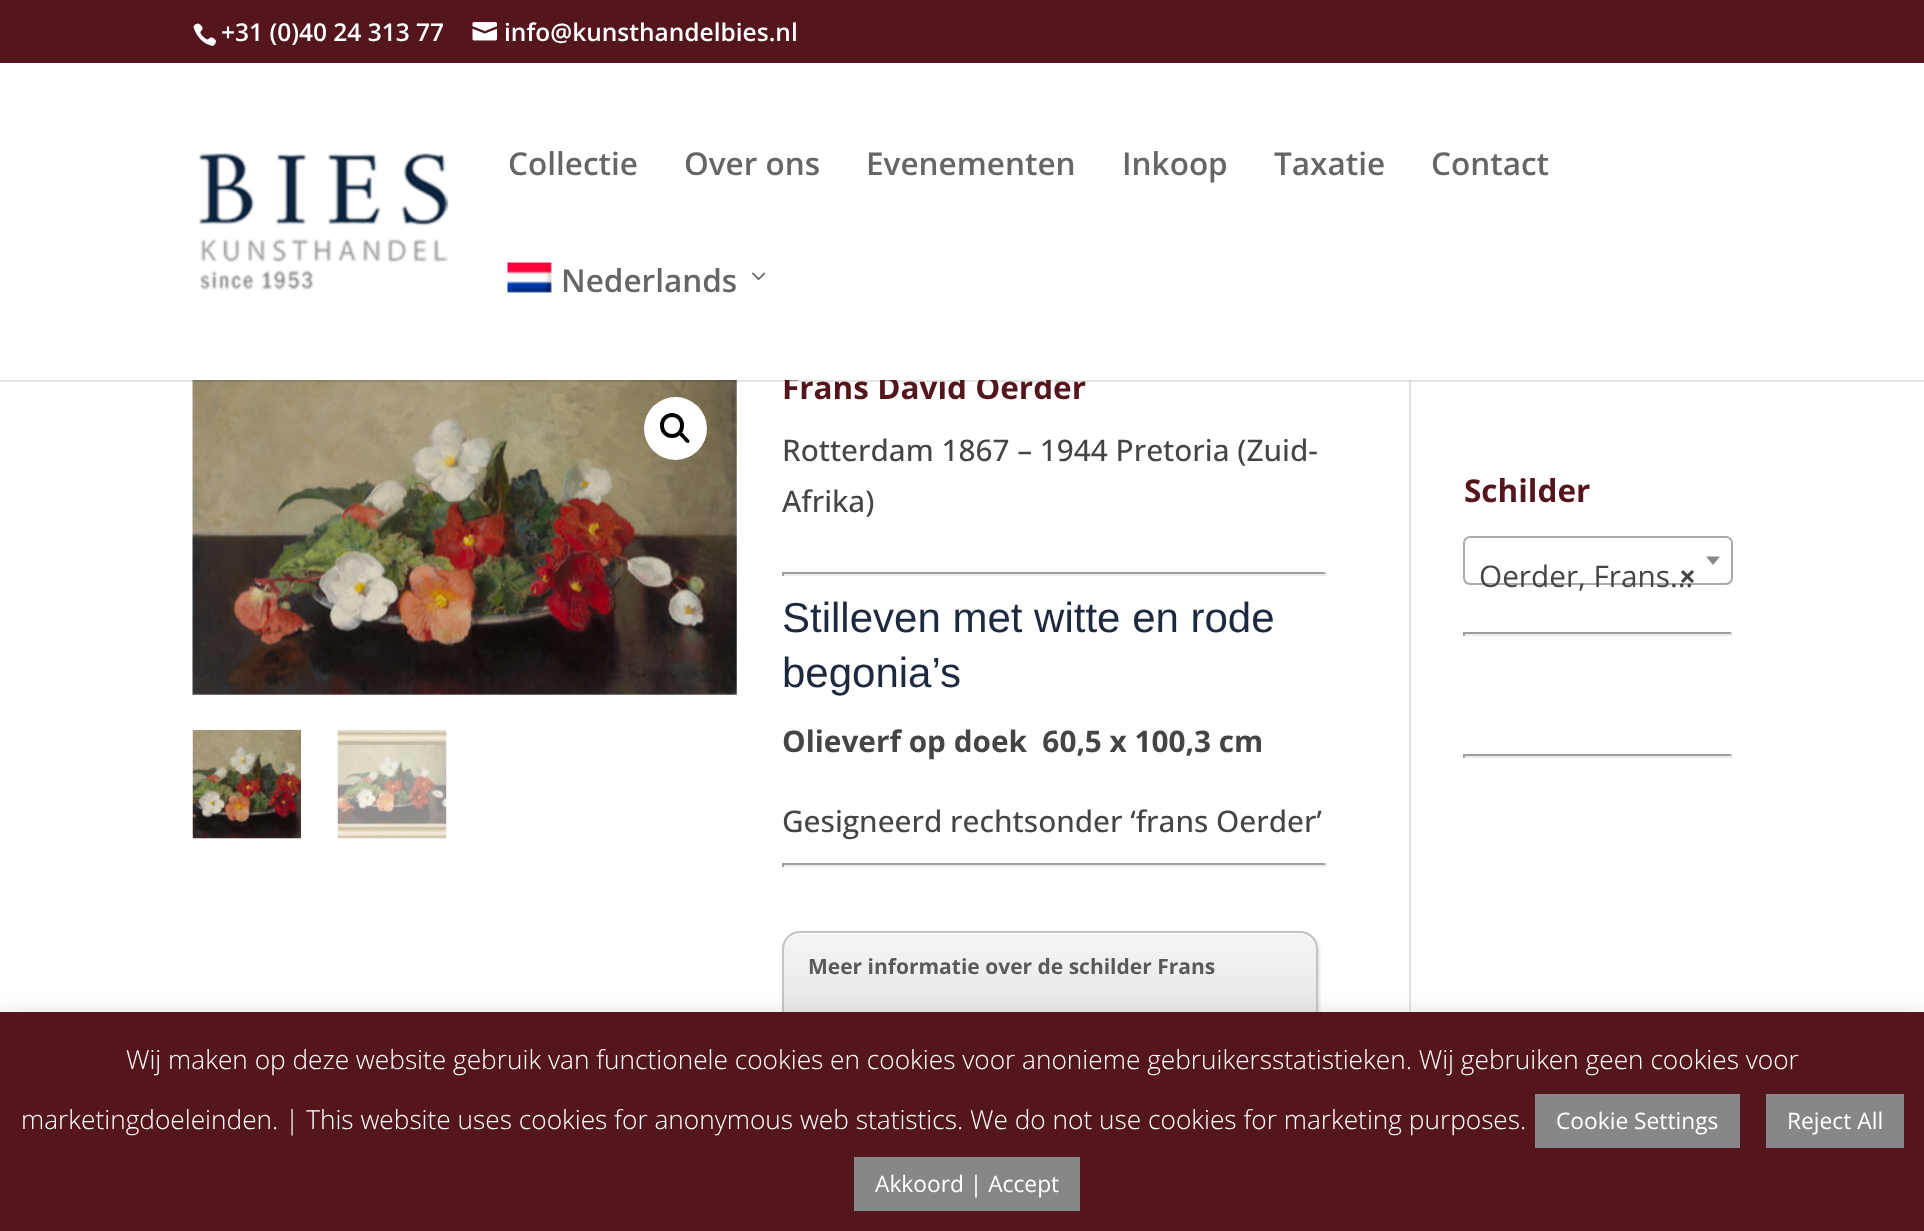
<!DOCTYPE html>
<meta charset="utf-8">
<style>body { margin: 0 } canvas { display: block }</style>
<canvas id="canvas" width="1924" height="1231"></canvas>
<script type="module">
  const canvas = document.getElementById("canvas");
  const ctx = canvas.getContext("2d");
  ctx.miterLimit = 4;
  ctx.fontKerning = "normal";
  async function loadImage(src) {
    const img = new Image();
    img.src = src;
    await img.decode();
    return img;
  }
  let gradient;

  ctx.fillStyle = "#ffffff";
  ctx.fillRect(0, 0, 1924, 1231);
  ctx.fillStyle = "#54161c";
  ctx.fillRect(0, 0, 1924, 63);
  ctx.drawImage(await loadImage("img1.png"), 193, 23, 23, 23);
  ctx.font = "600 24.5px Open Sans";
  ctx.fillStyle = "#ffffff";
  ctx.fillText("+31 (0)40 24 313 77", 221, 41);
  ctx.drawImage(await loadImage("img2.png"), 472, 22, 25, 19);
  ctx.fillText("info@kunsthandelbies.nl", 504, 41);
  ctx.drawImage(await loadImage("img7.png"), 736, 380, 1, 315);
  ctx.drawImage(await loadImage("img6.png"), 192, 380, 545, 315);
  ctx.fillStyle = "#e2e2e2";
  ctx.fillRect(1409, 380, 2, 632);
  ctx.fillStyle = "rgba(0, 0, 0, 0.1)";
  ctx.fillRect(0, 380, 1924, 2);
  ctx.font = "bold 31.5px Open Sans";
  ctx.fillStyle = "#54161c";
  ctx.fillText("Frans David Oerder", 782, 399);
  ctx.fillStyle = "#ffffff";
  ctx.fillRect(784, 375, 267, 5);
  ctx.drawImage(await loadImage("img3.png"), 199, 153, 250, 137);
  ctx.font = "600 31.5px Open Sans";
  ctx.fillStyle = "#666666";
  ctx.fillText("Collectie", 508, 175);
  ctx.fillText("Over ons", 684, 175);
  ctx.fillText("Evenementen", 866, 175);
  ctx.fillText("Inkoop", 1122, 175);
  ctx.fillText("Taxatie", 1274, 175);
  ctx.fillText("Contact", 1431, 175);
  ctx.drawImage(await loadImage("img4.png"), 507, 262, 45, 31);
  ctx.fillText("Nederlands", 561, 292);
  ctx.drawImage(await loadImage("img5.png"), 752, 272, 14, 8);
  ctx.fillStyle = "#ffffff";
  ctx.beginPath();
  ctx.arc(675.5, 428.5, 31.5, 0, Math.PI * 2);
  ctx.fill();
  ctx.beginPath();
  ctx.roundRect(662, 415, 20, 21, 10);
  ctx.strokeStyle = "#000000";
  ctx.lineWidth = 4;
  ctx.stroke();
  ctx.fillStyle = "#000000";
  ctx.beginPath();
  ctx.moveTo(679.5, 432.5);
  ctx.bezierCurveTo(681.5, 430.5, 684.5, 435, 685.5, 436.5);
  ctx.bezierCurveTo(686.5, 437.5, 691, 440.5, 689, 442.5);
  ctx.bezierCurveTo(687, 444.5, 684, 440, 683, 438.5);
  ctx.bezierCurveTo(682, 437.5, 677.5, 434.5, 679.5, 432.5);
  ctx.closePath();
  ctx.fill();
  ctx.drawImage(await loadImage("img8.png"), 192, 729, 109, 110);
  ctx.drawImage(await loadImage("img9.png"), 337, 730, 110, 109);
  ctx.font = "500 29.75px Open Sans";
  ctx.fillStyle = "#444546";
  ctx.fillText("Rotterdam 1867 – 1944 Pretoria (Zuid-", 782, 461);
  ctx.fillText("Afrika)", 782, 512);
  ctx.fillStyle = "#9f9f9f";
  ctx.fillRect(782, 572, 545, 2);
  ctx.fillStyle = "#eeeeee";
  ctx.fillRect(1325, 572, 2, 4);
  ctx.fillRect(782, 574, 545, 2);
  ctx.fillStyle = "#9f9f9f";
  ctx.fillRect(782, 572, 2, 4);
  ctx.font = "42px Liberation Sans";
  ctx.fillStyle = "#1d293f";
  ctx.fillText("Stilleven met witte en rode", 782, 632);
  ctx.fillText("begonia’s", 782, 687);
  ctx.font = "bold 29.75px Open Sans";
  ctx.fillStyle = "#444546";
  ctx.fillText("Olieverf op doek  60,5 x 100,3 cm", 782, 752);
  ctx.font = "500 29.75px Open Sans";
  ctx.fillText("Gesigneerd rechtsonder ‘frans Oerder’", 782, 832);
  ctx.fillStyle = "#9f9f9f";
  ctx.fillRect(782, 863, 545, 2);
  ctx.fillStyle = "#eeeeee";
  ctx.fillRect(1325, 863, 2, 4);
  ctx.fillRect(782, 865, 545, 2);
  ctx.fillStyle = "#9f9f9f";
  ctx.fillRect(782, 863, 2, 4);
  ctx.fillStyle = "rgba(0, 0, 0, 0.1)";
  ctx.filter = "blur(1px)";
  ctx.beginPath();
  ctx.roundRect(784, 933, 536, 115, 18);
  ctx.fill();
  ctx.filter = "none";
  ctx.save();
  ctx.beginPath();
  ctx.roundRect(782, 931, 536, 116, 18);
  ctx.clip();
  gradient = ctx.createLinearGradient(1050, 933, 1050, 1045);
  gradient.addColorStop(0, "#f5f5f5");
  gradient.addColorStop(1, "#e2e2e2");
  ctx.fillStyle = gradient;
  ctx.fillRect(782, 933, 536, 79);
  ctx.restore();
  ctx.fillStyle = "#fefefe";
  ctx.beginPath();
  ctx.moveTo(800, 934);
  ctx.lineTo(1300, 934);
  ctx.bezierCurveTo(1309, 934, 1316, 942, 1316, 950);
  ctx.lineTo(1316, 949);
  ctx.bezierCurveTo(1316, 940, 1309, 933, 1300, 933);
  ctx.lineTo(800, 933);
  ctx.bezierCurveTo(791, 933, 784, 940, 784, 949);
  ctx.lineTo(784, 950);
  ctx.bezierCurveTo(784, 942, 791, 934, 800, 934);
  ctx.closePath();
  ctx.fill();
  ctx.beginPath();
  ctx.roundRect(783, 932, 534, 114, 17);
  ctx.strokeStyle = "#c3c3c3";
  ctx.lineWidth = 2;
  ctx.stroke();
  ctx.font = "bold 21px Open Sans";
  ctx.fillStyle = "#595a5a";
  ctx.fillText("Meer informatie over de schilder Frans", 808, 974);
  ctx.font = "bold 31.5px Open Sans";
  ctx.fillStyle = "#54161c";
  ctx.fillText("Schilder", 1464, 502);
  ctx.beginPath();
  ctx.roundRect(1464, 537, 268, 47, 6);
  ctx.strokeStyle = "#aaaaaa";
  ctx.stroke();
  ctx.fillStyle = "#888888";
  ctx.beginPath();
  ctx.moveTo(1706, 556.5);
  ctx.lineTo(1720, 556.5);
  ctx.lineTo(1713, 565);
  ctx.closePath();
  ctx.fill();
  ctx.font = "29.75px Open Sans";
  ctx.fillStyle = "#444546";
  ctx.fillText("Oerder, Frans…", 1479, 587);
  ctx.font = "bold 29.75px Open Sans";
  ctx.fillText("×", 1679, 587);
  ctx.fillStyle = "#9f9f9f";
  ctx.fillRect(1463, 632, 270, 2);
  ctx.fillStyle = "#eeeeee";
  ctx.fillRect(1731, 632, 2, 4);
  ctx.fillRect(1463, 634, 270, 2);
  ctx.fillStyle = "#9f9f9f";
  ctx.fillRect(1463, 632, 2, 4);
  ctx.fillRect(1463, 754, 270, 2);
  ctx.fillStyle = "#eeeeee";
  ctx.fillRect(1731, 754, 2, 4);
  ctx.fillRect(1463, 756, 270, 2);
  ctx.fillStyle = "#9f9f9f";
  ctx.fillRect(1463, 754, 2, 4);
  ctx.fillStyle = "rgba(172, 171, 171, 0.3)";
  ctx.filter = "blur(9px)";
  ctx.beginPath();
  ctx.rect(0, 1010, 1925, 220);
  ctx.fill();
  ctx.filter = "none";
  ctx.fillStyle = "#54161c";
  ctx.fillRect(0, 1012, 1924, 219);
  ctx.font = "300 26.25px Open Sans";
  ctx.fillStyle = "#ffffff";
  ctx.fillText("Wij maken op deze website gebruik van functionele cookies en cookies voor anonieme gebruikersstatistieken. Wij gebruiken geen cookies voor", 126, 1069);
  ctx.fillText("marketingdoeleinden. | This website uses cookies for anonymous web statistics. We do not use cookies for marketing purposes.", 21, 1129);
  ctx.fillStyle = "#858788";
  ctx.fillRect(1535, 1094, 205, 54);
  ctx.font = "22.75px Open Sans";
  ctx.fillStyle = "#ffffff";
  ctx.fillText("Cookie Settings", 1556, 1129);
  ctx.fillStyle = "#858788";
  ctx.fillRect(1766, 1094, 138, 54);
  ctx.fillStyle = "#ffffff";
  ctx.fillText("Reject All", 1787, 1129);
  ctx.fillStyle = "#858788";
  ctx.fillRect(854, 1157, 226, 54);
  ctx.fillStyle = "#ffffff";
  ctx.fillText("Akkoord | Accept", 875, 1192);
</script>
